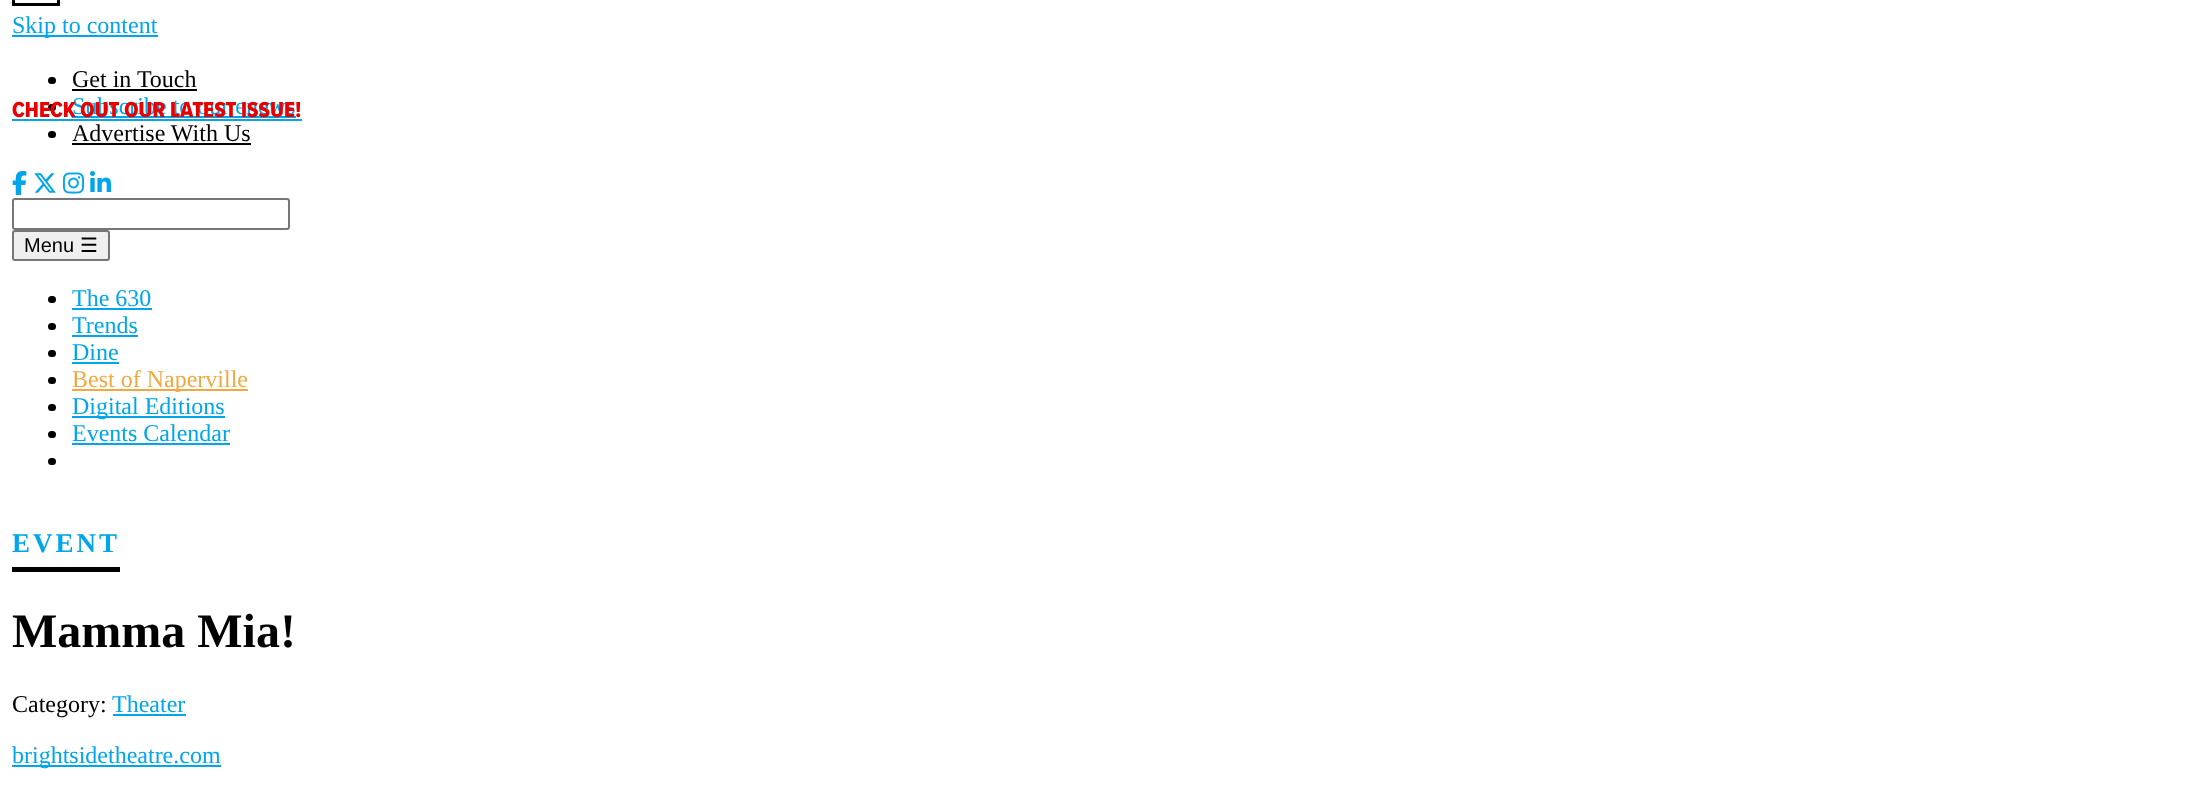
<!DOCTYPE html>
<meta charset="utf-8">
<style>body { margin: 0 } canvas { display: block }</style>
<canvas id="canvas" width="2204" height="793"></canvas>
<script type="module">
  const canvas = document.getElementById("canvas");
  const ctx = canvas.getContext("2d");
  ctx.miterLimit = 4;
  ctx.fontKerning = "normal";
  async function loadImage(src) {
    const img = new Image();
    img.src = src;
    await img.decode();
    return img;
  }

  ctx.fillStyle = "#ffffff";
  ctx.fillRect(0, 0, 2204, 793);
  ctx.strokeStyle = "#000000";
  ctx.lineWidth = 3;
  ctx.strokeRect(13.5, -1.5, 45, 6);
  ctx.fillStyle = "#00a6e9";
  ctx.fillRect(12, 35, 146, 2);
  ctx.font = "24px Liberation Serif";
  ctx.fillText("Skip to content", 12, 33);
  ctx.fillStyle = "#000000";
  ctx.beginPath();
  ctx.roundRect(48, 77, 8, 7, 3.5);
  ctx.fill();
  ctx.fillText("Get in Touch", 72, 87);
  ctx.fillRect(72, 89, 125, 2);
  ctx.beginPath();
  ctx.roundRect(48, 104, 8, 7, 3.5);
  ctx.fill();
  ctx.fillStyle = "#00a6e9";
  ctx.fillText("Subscribe to our enews", 72, 114);
  ctx.fillRect(72, 116, 224, 2);
  ctx.fillStyle = "#000000";
  ctx.beginPath();
  ctx.roundRect(48, 131, 8, 7, 3.5);
  ctx.fill();
  ctx.fillText("Advertise With Us", 72, 141);
  ctx.fillRect(72, 143, 179, 2);
  ctx.drawImage(await loadImage("img1.png"), 12, 171, 15, 24);
  ctx.drawImage(await loadImage("img2.png"), 34, 173, 22, 20);
  ctx.drawImage(await loadImage("img3.png"), 63, 172, 21, 22);
  ctx.drawImage(await loadImage("img4.png"), 90, 171, 21, 21);
  ctx.font = "800 22.5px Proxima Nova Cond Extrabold";
  ctx.fillStyle = "#e90000";
  ctx.fillText("CHECK OUT OUR LATEST ISSUE!", 12, 117);
  ctx.fillStyle = "#00a6e9";
  ctx.fillRect(12, 119, 290, 2);
  ctx.beginPath();
  ctx.roundRect(13, 199, 276, 30, 2);
  ctx.strokeStyle = "#767676";
  ctx.lineWidth = 2;
  ctx.stroke();
  ctx.fillStyle = "#efefef";
  ctx.beginPath();
  ctx.roundRect(13, 231, 96, 29, 2);
  ctx.fill();
  ctx.stroke();
  ctx.font = "20px Liberation Sans";
  ctx.fillStyle = "#000000";
  ctx.fillText("Menu", 24, 252);
  ctx.font = "20px DejaVu Sans";
  ctx.fillText("☰", 80, 252);
  ctx.beginPath();
  ctx.roundRect(48, 296, 8, 7, 3.5);
  ctx.fill();
  ctx.font = "24px Liberation Serif";
  ctx.fillStyle = "#00a6e9";
  ctx.fillText("The 630", 72, 306);
  ctx.fillRect(72, 308, 80, 2);
  ctx.fillStyle = "#000000";
  ctx.beginPath();
  ctx.roundRect(48, 323, 8, 7, 3.5);
  ctx.fill();
  ctx.fillStyle = "#00a6e9";
  ctx.fillText("Trends", 72, 333);
  ctx.fillRect(72, 335, 66, 2);
  ctx.fillStyle = "#000000";
  ctx.beginPath();
  ctx.roundRect(48, 350, 8, 7, 3.5);
  ctx.fill();
  ctx.fillStyle = "#00a6e9";
  ctx.fillText("Dine", 72, 360);
  ctx.fillRect(72, 362, 47, 2);
  ctx.fillStyle = "#000000";
  ctx.beginPath();
  ctx.roundRect(48, 377, 8, 7, 3.5);
  ctx.fill();
  ctx.fillStyle = "#eeaa41";
  ctx.fillRect(72, 389, 176, 2);
  ctx.fillText("Best of Naperville", 72, 387);
  ctx.fillStyle = "#000000";
  ctx.beginPath();
  ctx.roundRect(48, 404, 8, 7, 3.5);
  ctx.fill();
  ctx.fillStyle = "#00a6e9";
  ctx.fillRect(72, 416, 153, 2);
  ctx.fillText("Digital Editions", 72, 414);
  ctx.fillStyle = "#000000";
  ctx.beginPath();
  ctx.roundRect(48, 431, 8, 7, 3.5);
  ctx.fill();
  ctx.fillStyle = "#00a6e9";
  ctx.fillText("Events Calendar", 72, 441);
  ctx.fillRect(72, 443, 158, 2);
  ctx.fillStyle = "#000000";
  ctx.beginPath();
  ctx.roundRect(48, 458, 8, 7, 3.5);
  ctx.fill();
  ctx.fillRect(12, 567, 108, 5);
  ctx.letterSpacing = "3px";
  ctx.font = "bold 27px Liberation Serif";
  ctx.fillStyle = "#00a6e9";
  ctx.fillText("EVENT", 12, 552);
  ctx.letterSpacing = "0px";
  ctx.font = "bold 48px Liberation Serif";
  ctx.fillStyle = "#000000";
  ctx.fillText("Mamma Mia!", 12, 647);
  ctx.font = "24px Liberation Serif";
  ctx.fillText("Category:", 12, 712);
  ctx.fillStyle = "#00a6e9";
  ctx.fillText("Theater", 112, 712);
  ctx.fillRect(113, 714, 73, 2);
  ctx.fillRect(12, 765, 209, 2);
  ctx.fillText("brightsidetheatre.com", 12, 763);
</script>
